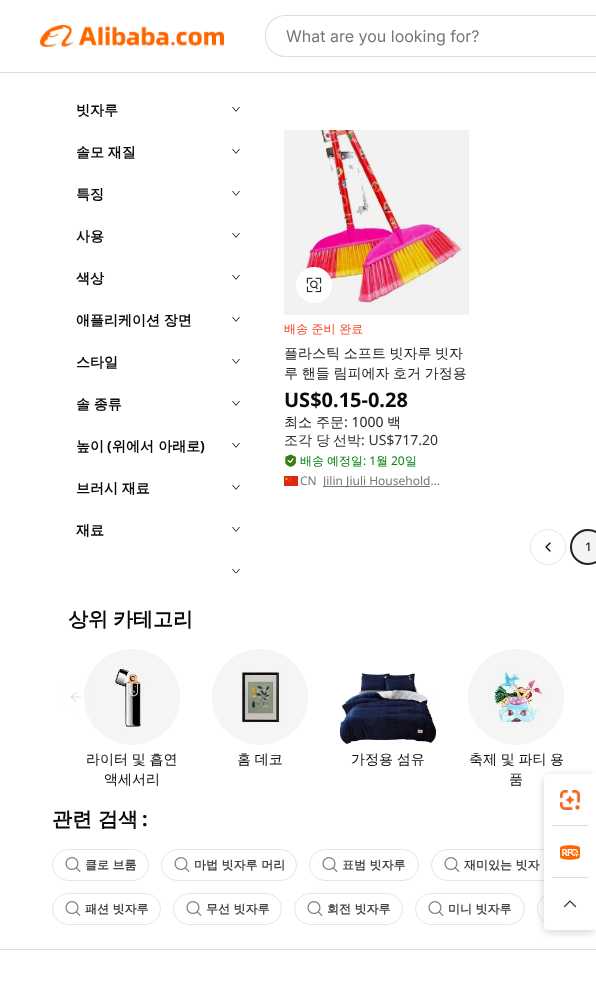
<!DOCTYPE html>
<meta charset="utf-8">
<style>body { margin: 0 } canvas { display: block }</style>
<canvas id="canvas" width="596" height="990"></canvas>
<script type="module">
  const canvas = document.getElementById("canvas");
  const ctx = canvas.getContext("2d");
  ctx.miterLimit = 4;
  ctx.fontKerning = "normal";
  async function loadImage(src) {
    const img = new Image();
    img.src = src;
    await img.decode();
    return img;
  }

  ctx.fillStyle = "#ffffff";
  ctx.fillRect(0, 0, 596, 990);
  ctx.fillStyle = "#dddddd";
  ctx.fillRect(0, 72, 596, 1);
  ctx.drawImage(await loadImage("img1.png"), 40, 25, 184, 22);
  ctx.beginPath();
  ctx.roundRect(265, 15, 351, 42, 20);
  ctx.fill();
  ctx.fillStyle = "#ffffff";
  ctx.beginPath();
  ctx.roundRect(266, 16, 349, 40, 19);
  ctx.fill();
  ctx.font = "16px Inter";
  ctx.fillStyle = "#767676";
  ctx.fillText("What are you looking for?", 286, 42);
  ctx.font = "bold 14px WenQuanYi Zen Hei";
  ctx.fillStyle = "#0c0a09";
  ctx.fillText("빗자루", 76, 115);
  ctx.drawImage(await loadImage("img2.png"), 232, 106, 8, 6);
  ctx.wordSpacing = "-0.5px";
  ctx.fillText("솔모 재질", 76, 157);
  ctx.drawImage(await loadImage("img2.png"), 232, 148, 8, 6);
  ctx.wordSpacing = "0px";
  ctx.fillText("특징", 76, 199);
  ctx.drawImage(await loadImage("img2.png"), 232, 190, 8, 6);
  ctx.fillText("사용", 76, 241);
  ctx.drawImage(await loadImage("img2.png"), 232, 232, 8, 6);
  ctx.fillText("색상", 76, 283);
  ctx.drawImage(await loadImage("img2.png"), 232, 274, 8, 6);
  ctx.wordSpacing = "-0.5px";
  ctx.fillText("애플리케이션 장면", 76, 325);
  ctx.drawImage(await loadImage("img2.png"), 232, 316, 8, 6);
  ctx.wordSpacing = "0px";
  ctx.fillText("스타일", 76, 367);
  ctx.drawImage(await loadImage("img2.png"), 232, 358, 8, 6);
  ctx.wordSpacing = "-0.5px";
  ctx.fillText("솔 종류", 76, 409);
  ctx.drawImage(await loadImage("img2.png"), 232, 400, 8, 6);
  ctx.wordSpacing = "0px";
  ctx.fillText("높이", 76, 451);
  ctx.font = "bold 14px Noto Sans";
  ctx.fillText("(", 107, 451);
  ctx.font = "bold 14px WenQuanYi Zen Hei";
  ctx.fillText("위에서 아래로", 112, 451);
  ctx.font = "bold 14px Noto Sans";
  ctx.fillText(")", 200, 451);
  ctx.drawImage(await loadImage("img2.png"), 232, 442, 8, 6);
  ctx.wordSpacing = "-0.5px";
  ctx.font = "bold 14px WenQuanYi Zen Hei";
  ctx.fillText("브러시 재료", 76, 493);
  ctx.drawImage(await loadImage("img2.png"), 232, 484, 8, 6);
  ctx.wordSpacing = "0px";
  ctx.fillText("재료", 76, 535);
  ctx.drawImage(await loadImage("img2.png"), 232, 526, 8, 6);
  ctx.drawImage(await loadImage("img3.png"), 232, 568, 8, 5);
  ctx.drawImage(await loadImage("img4.png"), 300, 130, 162, 173);
  ctx.fillStyle = "rgba(0, 0, 0, 0.05)";
  ctx.fillRect(284, 130, 185, 185);
  ctx.fillStyle = "#ffffff";
  ctx.beginPath();
  ctx.arc(314, 285, 18, 0, Math.PI * 2);
  ctx.fill();
  ctx.drawImage(await loadImage("img5.png"), 306, 277, 16, 16);
  ctx.font = "500 12px WenQuanYi Zen Hei";
  ctx.fillStyle = "#f7421e";
  ctx.fillText("배송 준비 완료", 284, 333);
  ctx.wordSpacing = "-0.5px";
  ctx.font = "500 14px WenQuanYi Zen Hei";
  ctx.fillStyle = "#222222";
  ctx.fillText("플라스틱 소프트 빗자루 빗자", 284, 358);
  ctx.fillText("루 핸들 림피에자 호거 가정용", 284, 378);
  ctx.wordSpacing = "0px";
  ctx.font = "bold 20px Noto Sans";
  ctx.fillStyle = "#0c0a09";
  ctx.fillText("US$0.15-0.28", 284, 407);
  ctx.font = "500 14px WenQuanYi Zen Hei";
  ctx.fillStyle = "#222222";
  ctx.fillText("최소", 284, 427);
  ctx.fillText("주문", 316, 427);
  ctx.font = "14px Noto Sans";
  ctx.fillText(": 1000", 344, 427);
  ctx.font = "500 14px WenQuanYi Zen Hei";
  ctx.fillText("백", 387, 427);
  ctx.fillStyle = "#333333";
  ctx.fillText("조각", 284, 445);
  ctx.fillText("당", 316, 445);
  ctx.fillText("선박", 333, 445);
  ctx.font = "14px Noto Sans";
  ctx.fillText(": US$717.20", 361, 445);
  ctx.drawImage(await loadImage("img6.png"), 285, 454, 11, 13);
  ctx.font = "500 12px WenQuanYi Zen Hei";
  ctx.fillStyle = "#00820d";
  ctx.fillText("배송", 300, 465);
  ctx.fillText("예정일", 327, 465);
  ctx.font = "12px Noto Sans";
  ctx.fillText(": 1", 363, 465);
  ctx.font = "500 12px WenQuanYi Zen Hei";
  ctx.fillText("월", 376, 465);
  ctx.font = "12px Noto Sans";
  ctx.fillText("20", 391, 465);
  ctx.font = "500 12px WenQuanYi Zen Hei";
  ctx.fillText("일", 405, 465);
  ctx.drawImage(await loadImage("img7.png"), 284, 476, 14, 10);
  ctx.font = "12px Noto Sans";
  ctx.fillStyle = "#767676";
  ctx.fillText("CN", 300, 485);
  ctx.fillRect(323, 486, 107, 1);
  ctx.save();
  ctx.beginPath();
  ctx.rect(323, 473, 146, 16);
  ctx.clip();
  ctx.fillText("Jilin Jiuli Household…", 323, 485);
  ctx.restore();
  ctx.beginPath();
  ctx.arc(548, 547, 17.5, 0, Math.PI * 2);
  ctx.strokeStyle = "#e7e5e4";
  ctx.stroke();
  ctx.beginPath();
  ctx.moveTo(550, 551);
  ctx.lineTo(546, 547);
  ctx.lineTo(550, 543);
  ctx.strokeStyle = "#0c0a09";
  ctx.lineWidth = 1.3;
  ctx.lineCap = "round";
  ctx.lineJoin = "round";
  ctx.stroke();
  ctx.fillStyle = "#f4f4f4";
  ctx.beginPath();
  ctx.arc(588, 547, 17, 0, Math.PI * 2);
  ctx.fill();
  ctx.strokeStyle = "#222222";
  ctx.lineWidth = 2;
  ctx.stroke();
  ctx.font = "500 12px Noto Sans";
  ctx.fillStyle = "#222222";
  ctx.fillText("1", 585, 551);
  ctx.wordSpacing = "-1px";
  ctx.font = "bold 20px WenQuanYi Zen Hei";
  ctx.fillStyle = "#0c0a09";
  ctx.fillText("상위 카테고리", 68, 626);
  ctx.drawImage(await loadImage("img9.png"), 84, 649, 96, 96);
  ctx.beginPath();
  ctx.arc(76, 697, 15.5, 0, Math.PI * 2);
  ctx.strokeStyle = "rgba(231, 229, 228, 0.1)";
  ctx.lineWidth = 1;
  ctx.stroke();
  ctx.drawImage(await loadImage("img8.png"), 70, 692, 11, 10);
  ctx.wordSpacing = "-0.5px";
  ctx.font = "500 14px WenQuanYi Zen Hei";
  ctx.fillText("라이터 및 흡연", 86, 764);
  ctx.wordSpacing = "0px";
  ctx.fillText("액세서리", 104, 784);
  ctx.drawImage(await loadImage("img10.png"), 212, 649, 96, 96);
  ctx.wordSpacing = "-0.5px";
  ctx.fillText("홈 데코", 237, 764);
  ctx.drawImage(await loadImage("img11.png"), 340, 673, 96, 71);
  ctx.fillText("가정용 섬유", 351, 764);
  ctx.drawImage(await loadImage("img12.png"), 468, 649, 96, 96);
  ctx.fillText("축제 및 파티 용", 469, 764);
  ctx.wordSpacing = "0px";
  ctx.fillText("품", 509, 784);
  ctx.font = "bold 20px WenQuanYi Zen Hei";
  ctx.fillText("관련 검색", 52, 826);
  ctx.font = "bold 20px Noto Sans";
  ctx.fillText(":", 142, 826);
  ctx.beginPath();
  ctx.roundRect(52.5, 849.5, 96, 31, 15.5);
  ctx.strokeStyle = "#e7e5e4";
  ctx.lineJoin = "miter";
  ctx.stroke();
  ctx.drawImage(await loadImage("img13.png"), 65, 857, 16, 15);
  ctx.font = "bold 12px WenQuanYi Zen Hei";
  ctx.fillStyle = "#444444";
  ctx.fillText("클로 브룸", 85, 869);
  ctx.beginPath();
  ctx.roundRect(161.5, 849.5, 135, 31, 15.5);
  ctx.stroke();
  ctx.drawImage(await loadImage("img13.png"), 174, 857, 16, 15);
  ctx.fillText("마법 빗자루 머리", 194, 869);
  ctx.beginPath();
  ctx.roundRect(309.5, 849.5, 109, 31, 15.5);
  ctx.stroke();
  ctx.drawImage(await loadImage("img13.png"), 322, 857, 16, 15);
  ctx.fillText("표범 빗자루", 342, 869);
  ctx.beginPath();
  ctx.roundRect(431.5, 849.5, 132, 31, 15.5);
  ctx.stroke();
  ctx.drawImage(await loadImage("img13.png"), 444, 857, 16, 15);
  ctx.fillText("재미있는 빗자", 464, 869);
  ctx.beginPath();
  ctx.roundRect(52.5, 893.5, 108, 31, 15.5);
  ctx.stroke();
  ctx.drawImage(await loadImage("img13.png"), 65, 901, 16, 15);
  ctx.fillText("패션 빗자루", 85, 913);
  ctx.beginPath();
  ctx.roundRect(173.5, 893.5, 108, 31, 15.5);
  ctx.stroke();
  ctx.drawImage(await loadImage("img13.png"), 186, 901, 16, 15);
  ctx.fillText("무선 빗자루", 206, 913);
  ctx.beginPath();
  ctx.roundRect(294.5, 893.5, 108, 31, 15.5);
  ctx.stroke();
  ctx.drawImage(await loadImage("img13.png"), 307, 901, 16, 15);
  ctx.fillText("회전 빗자루", 327, 913);
  ctx.beginPath();
  ctx.roundRect(415.5, 893.5, 109, 31, 15.5);
  ctx.stroke();
  ctx.drawImage(await loadImage("img13.png"), 428, 901, 16, 15);
  ctx.fillText("미니 빗자루", 448, 913);
  ctx.beginPath();
  ctx.roundRect(537.5, 893.5, 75, 31, 15.5);
  ctx.stroke();
  ctx.fillStyle = "rgba(0, 0, 0, 0.12)";
  ctx.filter = "blur(3px)";
  ctx.beginPath();
  ctx.roundRect(542, 774, 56, 160, 10);
  ctx.fill();
  ctx.filter = "none";
  ctx.fillStyle = "#ffffff";
  ctx.beginPath();
  ctx.roundRect(544, 774, 52, 156, [8, 0, 0, 8]);
  ctx.fill();
  ctx.beginPath();
  ctx.roundRect(544, 774, 52, 52, 4);
  ctx.fill();
  ctx.drawImage(await loadImage("img14.png"), 560, 790, 20, 20);
  ctx.fillStyle = "#dddddd";
  ctx.fillRect(552, 825, 36, 1);
  ctx.drawImage(await loadImage("img15.png"), 560, 845, 20, 15);
  ctx.fillRect(552, 877, 36, 1);
  ctx.fillStyle = "#ffffff";
  ctx.beginPath();
  ctx.roundRect(544, 878, 52, 52, 4);
  ctx.fill();
  ctx.drawImage(await loadImage("img16.png"), 563, 900, 14, 8);
  ctx.fillStyle = "#dddddd";
  ctx.fillRect(0, 949, 596, 1);
</script>
